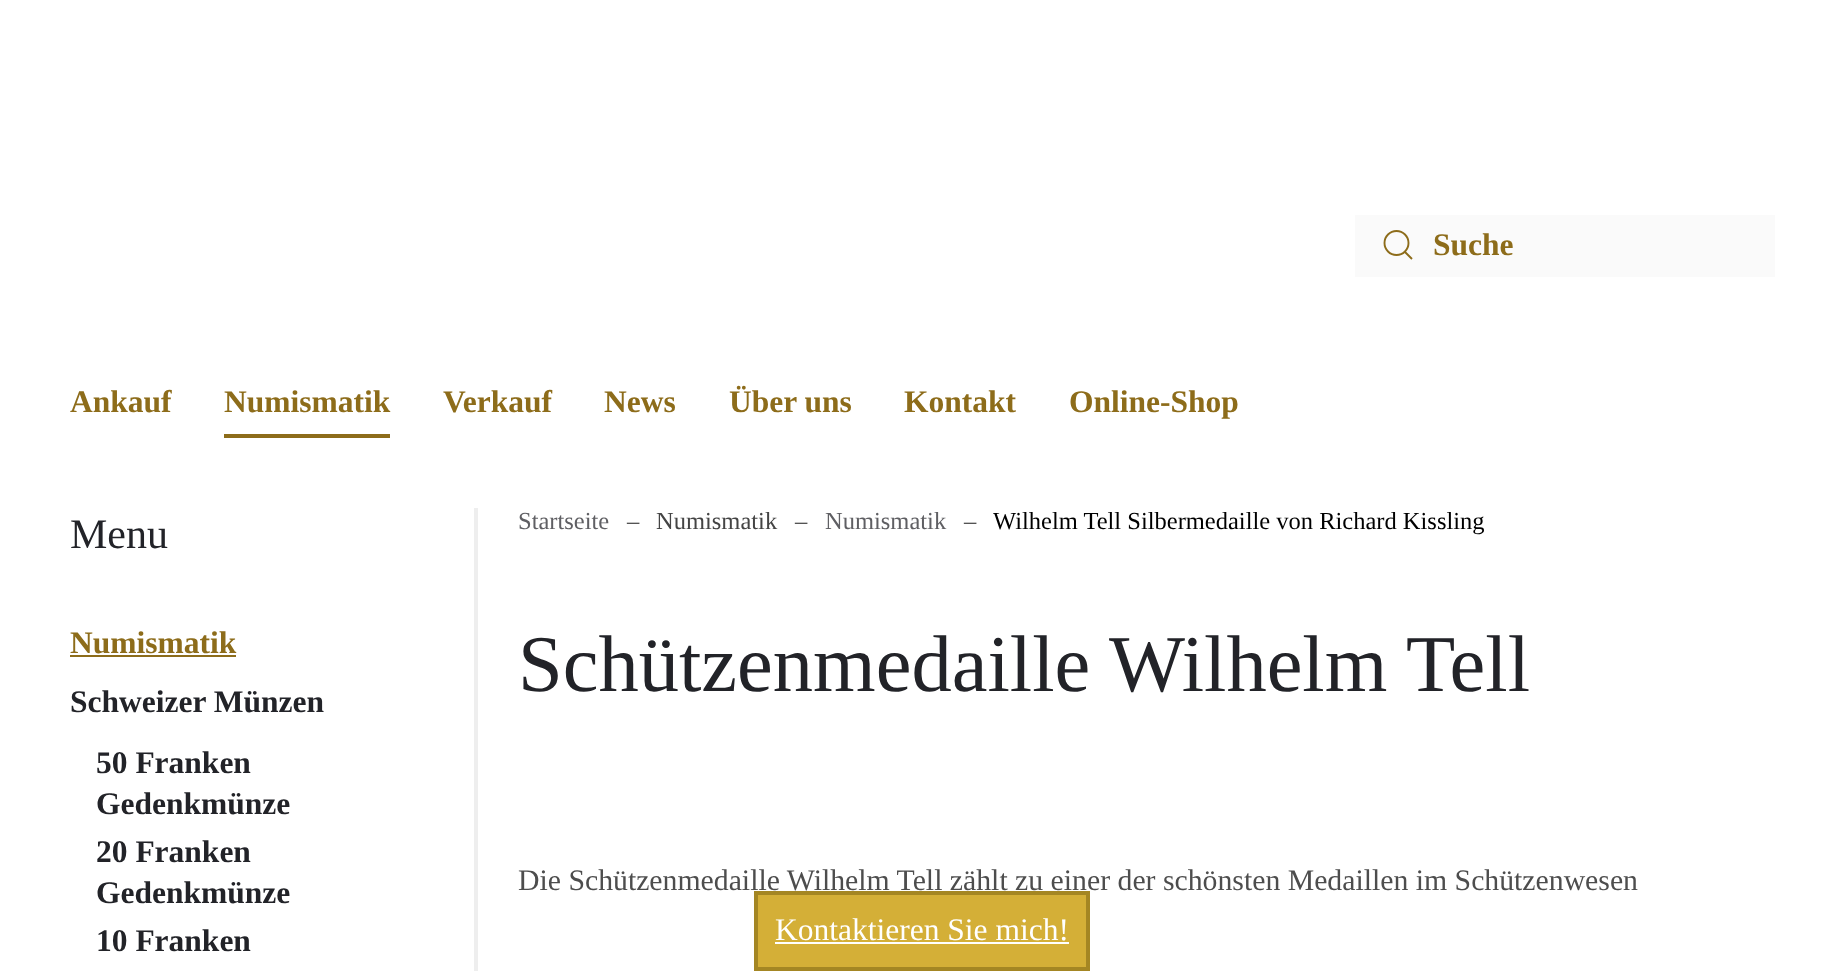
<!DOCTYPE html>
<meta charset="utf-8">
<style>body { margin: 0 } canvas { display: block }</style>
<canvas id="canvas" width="1844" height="971"></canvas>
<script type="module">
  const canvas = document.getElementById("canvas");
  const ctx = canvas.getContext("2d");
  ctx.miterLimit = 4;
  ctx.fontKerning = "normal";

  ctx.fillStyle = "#ffffff";
  ctx.fillRect(0, 0, 1844, 971);
  ctx.fillStyle = "#fafafa";
  ctx.fillRect(1355, 215, 420, 62);
  ctx.beginPath();
  ctx.arc(1396.5, 243, 12, 0, Math.PI * 2);
  ctx.strokeStyle = "#8d6c1a";
  ctx.lineWidth = 1.9;
  ctx.stroke();
  ctx.beginPath();
  ctx.moveTo(1405, 252);
  ctx.lineTo(1412, 259);
  ctx.closePath();
  ctx.stroke();
  ctx.font = "bold 31.5px Liberation Serif";
  ctx.fillStyle = "#8d6c1a";
  ctx.fillText("Suche", 1433, 255);
  ctx.fillText("Ankauf", 70, 412);
  ctx.fillText("Numismatik", 224, 412);
  ctx.fillRect(224, 434, 166, 4);
  ctx.fillText("Verkauf", 443, 412);
  ctx.fillText("News", 604, 412);
  ctx.fillText("Über uns", 729, 412);
  ctx.fillText("Kontakt", 904, 412);
  ctx.fillText("Online-Shop", 1069, 412);
  ctx.font = "42px Liberation Serif";
  ctx.fillStyle = "#222328";
  ctx.fillText("Menu", 70, 548);
  ctx.font = "bold 31.5px Liberation Serif";
  ctx.fillStyle = "#8d6c1a";
  ctx.fillText("Numismatik", 70, 653);
  ctx.fillRect(70, 655, 166, 2);
  ctx.fillStyle = "#222328";
  ctx.fillText("Schweizer Münzen", 70, 712);
  ctx.fillText("50 Franken", 96, 773);
  ctx.fillText("Gedenkmünze", 96, 814);
  ctx.fillText("20 Franken", 96, 862);
  ctx.fillText("Gedenkmünze", 96, 903);
  ctx.fillText("10 Franken", 96, 951);
  ctx.fillStyle = "#eeeeee";
  ctx.fillRect(474, 508, 4, 463);
  ctx.font = "24.5px Liberation Serif";
  ctx.fillStyle = "#5f5f63";
  ctx.fillText("Startseite", 518, 529);
  ctx.fillStyle = "#444444";
  ctx.fillText("–", 627, 529);
  ctx.fillText("Numismatik", 656, 529);
  ctx.fillText("–", 795, 529);
  ctx.fillStyle = "#5f5f63";
  ctx.fillText("Numismatik", 825, 529);
  ctx.fillStyle = "#444444";
  ctx.fillText("–", 964, 529);
  ctx.fillStyle = "#000000";
  ctx.fillText("Wilhelm Tell Silbermedaille von Richard Kissling", 993, 529);
  ctx.font = "80.5px Liberation Serif";
  ctx.fillStyle = "#222328";
  ctx.fillText("Schützenmedaille Wilhelm Tell", 518, 691);
  ctx.font = "29.75px Liberation Serif";
  ctx.fillStyle = "#4d4d4d";
  ctx.fillText("Die Schützenmedaille Wilhelm Tell zählt zu einer der schönsten Medaillen im Schützenwesen", 518, 890);
  ctx.fillStyle = "#d4af37";
  ctx.beginPath();
  ctx.rect(756, 893, 332, 76);
  ctx.fill();
  ctx.strokeStyle = "#a48623";
  ctx.lineWidth = 4;
  ctx.stroke();
  ctx.font = "31.5px Liberation Serif";
  ctx.fillStyle = "#ffffff";
  ctx.fillText("Kontaktieren Sie mich!", 775, 940);
  ctx.fillRect(775, 942, 294, 2);
</script>
